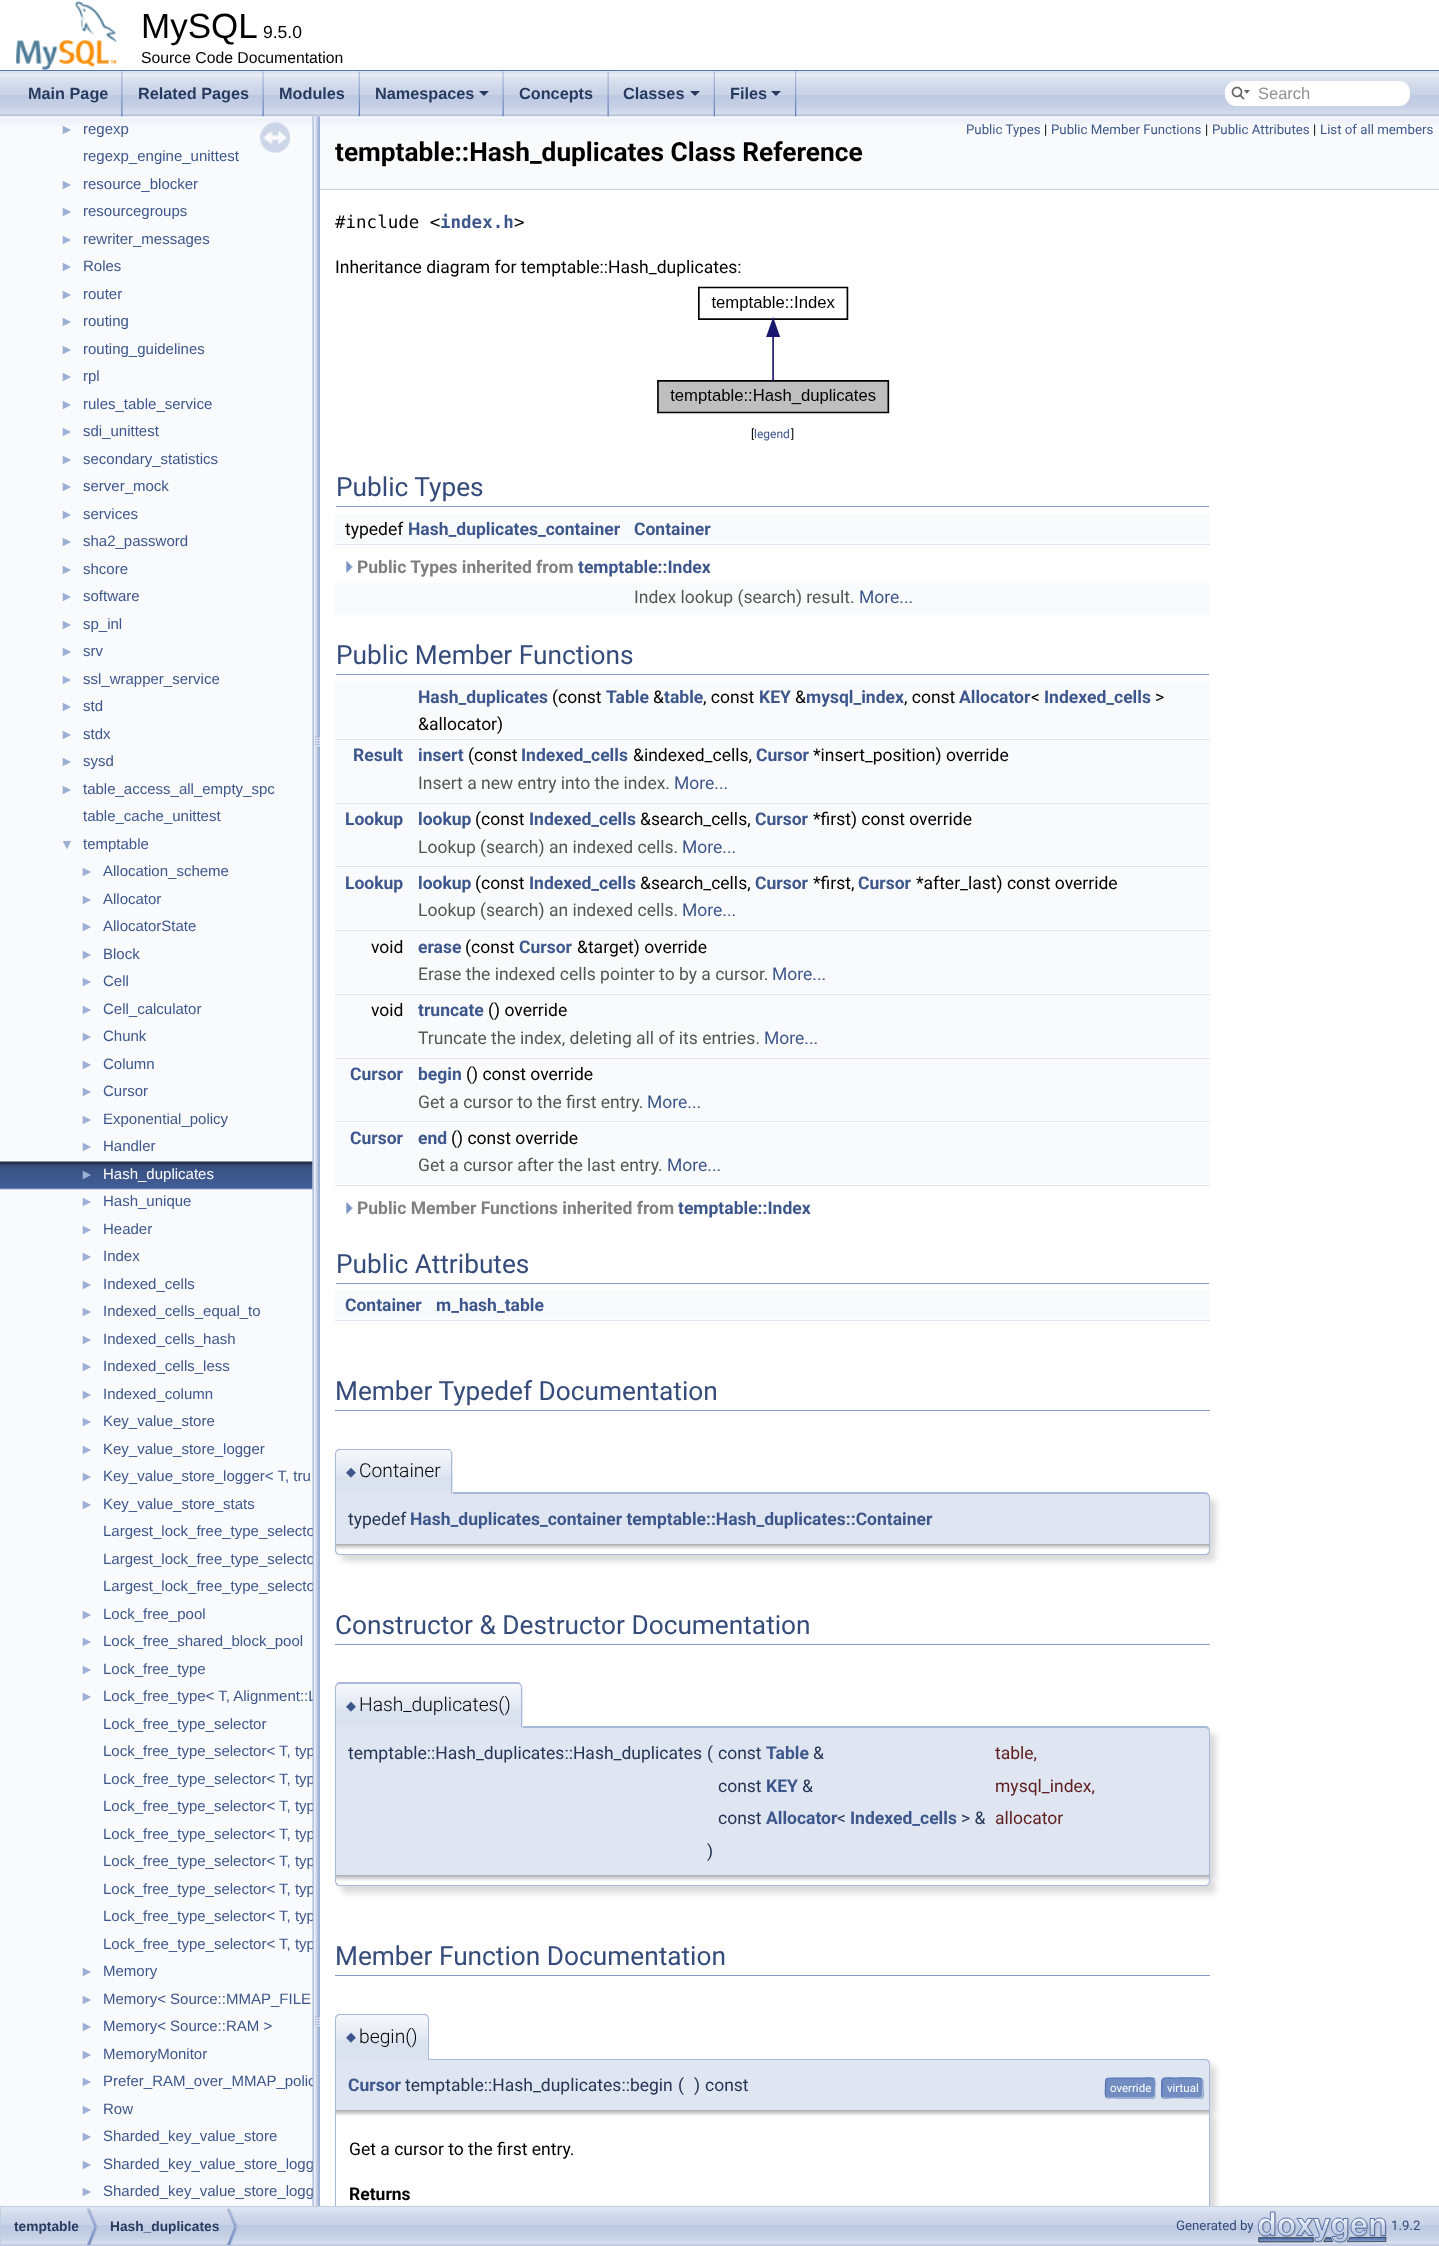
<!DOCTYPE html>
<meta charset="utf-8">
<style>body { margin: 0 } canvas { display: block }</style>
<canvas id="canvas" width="1439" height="2246"></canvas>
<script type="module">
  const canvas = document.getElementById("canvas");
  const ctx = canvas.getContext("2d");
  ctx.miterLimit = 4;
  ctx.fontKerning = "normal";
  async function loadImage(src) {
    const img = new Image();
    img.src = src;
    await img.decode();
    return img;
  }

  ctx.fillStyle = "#ffffff";
  ctx.fillRect(0, 0, 1439, 2246);
  ctx.fillStyle = "#5373b4";
  ctx.fillRect(0, 70, 1439, 1);
  ctx.drawImage(await loadImage("img1.png"), 16, 1, 101, 69);
  ctx.font = "35px Liberation Sans";
  ctx.fillStyle = "#000000";
  ctx.fillText("MySQL", 141, 38);
  ctx.font = "17.5px Liberation Sans";
  ctx.fillText("9.5.0", 263, 38);
  ctx.font = "15.75px Liberation Sans";
  ctx.fillText("Source Code Documentation", 141, 63);
  ctx.fillStyle = "#f9fafc";
  ctx.fillRect(0, 116, 313, 2090);
  ctx.drawImage(await loadImage("img9.png"), 0, 118, 313, 8);
  ctx.drawImage(await loadImage("img11.png"), 0, 1161, 313, 29);
  ctx.font = "15px Liberation Sans";
  ctx.fillStyle = "#3d578c";
  ctx.fillText("Largest_lock_free_type_selecto", 103, 1536);
  ctx.fillText("Largest_lock_free_type_selecto", 103, 1564);
  ctx.fillText("Largest_lock_free_type_selecto", 103, 1591);
  ctx.fillText("Lock_free_type< T, Alignment::L", 103, 1701);
  ctx.fillText("Lock_free_type_selector< T, typ", 103, 1756);
  ctx.fillText("Lock_free_type_selector< T, typ", 103, 1784);
  ctx.fillText("Lock_free_type_selector< T, typ", 103, 1811);
  ctx.fillText("Lock_free_type_selector< T, typ", 103, 1839);
  ctx.fillText("Lock_free_type_selector< T, typ", 103, 1866);
  ctx.fillText("Lock_free_type_selector< T, typ", 103, 1894);
  ctx.fillText("Lock_free_type_selector< T, typ", 103, 1921);
  ctx.fillText("Lock_free_type_selector< T, typ", 103, 1949);
  ctx.fillText("Prefer_RAM_over_MMAP_polic", 103, 2086);
  ctx.fillText("Sharded_key_value_store_logg", 103, 2169);
  ctx.fillText("Sharded_key_value_store_logg", 103, 2196);
  ctx.drawImage(await loadImage("img12.png"), 312, 116, 8, 2090);
  ctx.fillStyle = "#f9fafc";
  ctx.fillRect(320, 116, 1119, 73);
  ctx.drawImage(await loadImage("img2.png"), 0, 71, 1439, 46);
  ctx.drawImage(await loadImage("img3.png"), 121, 71, 2, 46);
  ctx.font = "bold 16.25px Liberation Sans";
  ctx.fillStyle = "#283a5d";
  ctx.fillText("Main Page", 28, 99);
  ctx.drawImage(await loadImage("img4.png"), 262, 71, 2, 46);
  ctx.fillText("Related Pages", 138, 99);
  ctx.drawImage(await loadImage("img5.png"), 358, 71, 2, 46);
  ctx.fillText("Modules", 279, 99);
  ctx.drawImage(await loadImage("img4.png"), 502, 71, 2, 46);
  ctx.fillText("Namespaces", 375, 99);
  ctx.beginPath();
  ctx.moveTo(479, 91);
  ctx.lineTo(489, 91);
  ctx.lineTo(484, 96);
  ctx.closePath();
  ctx.fill();
  ctx.drawImage(await loadImage("img4.png"), 607, 71, 2, 46);
  ctx.fillText("Concepts", 519, 99);
  ctx.drawImage(await loadImage("img6.png"), 713, 71, 2, 46);
  ctx.fillText("Classes", 623, 99);
  ctx.beginPath();
  ctx.moveTo(690, 91);
  ctx.lineTo(700, 91);
  ctx.lineTo(695, 96);
  ctx.closePath();
  ctx.fill();
  ctx.drawImage(await loadImage("img7.png"), 795, 71, 2, 46);
  ctx.fillText("Files", 730, 99);
  ctx.beginPath();
  ctx.moveTo(771, 91);
  ctx.lineTo(781, 91);
  ctx.lineTo(776, 96);
  ctx.closePath();
  ctx.fill();
  ctx.fillStyle = "#ffffff";
  ctx.beginPath();
  ctx.roundRect(1225, 81, 185, 25, 11);
  ctx.fill();
  ctx.drawImage(await loadImage("img8.png"), 1231, 86, 19, 14);
  ctx.font = "16.5px Liberation Sans";
  ctx.fillStyle = "#909090";
  ctx.fillText("Search", 1258, 99);
  ctx.drawImage(await loadImage("img10.png"), 260, 122, 30, 31);
  ctx.font = "14px Liberation Sans";
  ctx.fillStyle = "#9cafd4";
  ctx.fillText("►", 60, 134);
  ctx.font = "15px Liberation Sans";
  ctx.fillStyle = "#3d578c";
  ctx.fillText("regexp", 83, 134);
  ctx.fillText("regexp_engine_unittest", 83, 161);
  ctx.font = "14px Liberation Sans";
  ctx.fillStyle = "#9cafd4";
  ctx.fillText("►", 60, 189);
  ctx.font = "15px Liberation Sans";
  ctx.fillStyle = "#3d578c";
  ctx.fillText("resource_blocker", 83, 189);
  ctx.font = "14px Liberation Sans";
  ctx.fillStyle = "#9cafd4";
  ctx.fillText("►", 60, 216);
  ctx.font = "15px Liberation Sans";
  ctx.fillStyle = "#3d578c";
  ctx.fillText("resourcegroups", 83, 216);
  ctx.font = "14px Liberation Sans";
  ctx.fillStyle = "#9cafd4";
  ctx.fillText("►", 60, 244);
  ctx.font = "15px Liberation Sans";
  ctx.fillStyle = "#3d578c";
  ctx.fillText("rewriter_messages", 83, 244);
  ctx.font = "14px Liberation Sans";
  ctx.fillStyle = "#9cafd4";
  ctx.fillText("►", 60, 271);
  ctx.font = "15px Liberation Sans";
  ctx.fillStyle = "#3d578c";
  ctx.fillText("Roles", 83, 271);
  ctx.font = "14px Liberation Sans";
  ctx.fillStyle = "#9cafd4";
  ctx.fillText("►", 60, 299);
  ctx.font = "15px Liberation Sans";
  ctx.fillStyle = "#3d578c";
  ctx.fillText("router", 83, 299);
  ctx.font = "14px Liberation Sans";
  ctx.fillStyle = "#9cafd4";
  ctx.fillText("►", 60, 326);
  ctx.font = "15px Liberation Sans";
  ctx.fillStyle = "#3d578c";
  ctx.fillText("routing", 83, 326);
  ctx.font = "14px Liberation Sans";
  ctx.fillStyle = "#9cafd4";
  ctx.fillText("►", 60, 354);
  ctx.font = "15px Liberation Sans";
  ctx.fillStyle = "#3d578c";
  ctx.fillText("routing_guidelines", 83, 354);
  ctx.font = "14px Liberation Sans";
  ctx.fillStyle = "#9cafd4";
  ctx.fillText("►", 60, 381);
  ctx.font = "15px Liberation Sans";
  ctx.fillStyle = "#3d578c";
  ctx.fillText("rpl", 83, 381);
  ctx.font = "14px Liberation Sans";
  ctx.fillStyle = "#9cafd4";
  ctx.fillText("►", 60, 409);
  ctx.font = "15px Liberation Sans";
  ctx.fillStyle = "#3d578c";
  ctx.fillText("rules_table_service", 83, 409);
  ctx.font = "14px Liberation Sans";
  ctx.fillStyle = "#9cafd4";
  ctx.fillText("►", 60, 436);
  ctx.font = "15px Liberation Sans";
  ctx.fillStyle = "#3d578c";
  ctx.fillText("sdi_unittest", 83, 436);
  ctx.font = "14px Liberation Sans";
  ctx.fillStyle = "#9cafd4";
  ctx.fillText("►", 60, 464);
  ctx.font = "15px Liberation Sans";
  ctx.fillStyle = "#3d578c";
  ctx.fillText("secondary_statistics", 83, 464);
  ctx.font = "14px Liberation Sans";
  ctx.fillStyle = "#9cafd4";
  ctx.fillText("►", 60, 491);
  ctx.font = "15px Liberation Sans";
  ctx.fillStyle = "#3d578c";
  ctx.fillText("server_mock", 83, 491);
  ctx.font = "14px Liberation Sans";
  ctx.fillStyle = "#9cafd4";
  ctx.fillText("►", 60, 519);
  ctx.font = "15px Liberation Sans";
  ctx.fillStyle = "#3d578c";
  ctx.fillText("services", 83, 519);
  ctx.font = "14px Liberation Sans";
  ctx.fillStyle = "#9cafd4";
  ctx.fillText("►", 60, 546);
  ctx.font = "15px Liberation Sans";
  ctx.fillStyle = "#3d578c";
  ctx.fillText("sha2_password", 83, 546);
  ctx.font = "14px Liberation Sans";
  ctx.fillStyle = "#9cafd4";
  ctx.fillText("►", 60, 574);
  ctx.font = "15px Liberation Sans";
  ctx.fillStyle = "#3d578c";
  ctx.fillText("shcore", 83, 574);
  ctx.font = "14px Liberation Sans";
  ctx.fillStyle = "#9cafd4";
  ctx.fillText("►", 60, 601);
  ctx.font = "15px Liberation Sans";
  ctx.fillStyle = "#3d578c";
  ctx.fillText("software", 83, 601);
  ctx.font = "14px Liberation Sans";
  ctx.fillStyle = "#9cafd4";
  ctx.fillText("►", 60, 629);
  ctx.font = "15px Liberation Sans";
  ctx.fillStyle = "#3d578c";
  ctx.fillText("sp_inl", 83, 629);
  ctx.font = "14px Liberation Sans";
  ctx.fillStyle = "#9cafd4";
  ctx.fillText("►", 60, 656);
  ctx.font = "15px Liberation Sans";
  ctx.fillStyle = "#3d578c";
  ctx.fillText("srv", 83, 656);
  ctx.font = "14px Liberation Sans";
  ctx.fillStyle = "#9cafd4";
  ctx.fillText("►", 60, 684);
  ctx.font = "15px Liberation Sans";
  ctx.fillStyle = "#3d578c";
  ctx.fillText("ssl_wrapper_service", 83, 684);
  ctx.font = "14px Liberation Sans";
  ctx.fillStyle = "#9cafd4";
  ctx.fillText("►", 60, 711);
  ctx.font = "15px Liberation Sans";
  ctx.fillStyle = "#3d578c";
  ctx.fillText("std", 83, 711);
  ctx.font = "14px Liberation Sans";
  ctx.fillStyle = "#9cafd4";
  ctx.fillText("►", 60, 739);
  ctx.font = "15px Liberation Sans";
  ctx.fillStyle = "#3d578c";
  ctx.fillText("stdx", 83, 739);
  ctx.font = "14px Liberation Sans";
  ctx.fillStyle = "#9cafd4";
  ctx.fillText("►", 60, 766);
  ctx.font = "15px Liberation Sans";
  ctx.fillStyle = "#3d578c";
  ctx.fillText("sysd", 83, 766);
  ctx.font = "14px Liberation Sans";
  ctx.fillStyle = "#9cafd4";
  ctx.fillText("►", 60, 794);
  ctx.font = "15px Liberation Sans";
  ctx.fillStyle = "#3d578c";
  ctx.fillText("table_access_all_empty_spc", 83, 794);
  ctx.fillText("table_cache_unittest", 83, 821);
  ctx.font = "14px Liberation Sans";
  ctx.fillStyle = "#9cafd4";
  ctx.fillText("▼", 60, 849);
  ctx.font = "15px Liberation Sans";
  ctx.fillStyle = "#3d578c";
  ctx.fillText("temptable", 83, 849);
  ctx.font = "14px Liberation Sans";
  ctx.fillStyle = "#9cafd4";
  ctx.fillText("►", 80, 876);
  ctx.font = "15px Liberation Sans";
  ctx.fillStyle = "#3d578c";
  ctx.fillText("Allocation_scheme", 103, 876);
  ctx.font = "14px Liberation Sans";
  ctx.fillStyle = "#9cafd4";
  ctx.fillText("►", 80, 904);
  ctx.font = "15px Liberation Sans";
  ctx.fillStyle = "#3d578c";
  ctx.fillText("Allocator", 103, 904);
  ctx.font = "14px Liberation Sans";
  ctx.fillStyle = "#9cafd4";
  ctx.fillText("►", 80, 931);
  ctx.font = "15px Liberation Sans";
  ctx.fillStyle = "#3d578c";
  ctx.fillText("AllocatorState", 103, 931);
  ctx.font = "14px Liberation Sans";
  ctx.fillStyle = "#9cafd4";
  ctx.fillText("►", 80, 959);
  ctx.font = "15px Liberation Sans";
  ctx.fillStyle = "#3d578c";
  ctx.fillText("Block", 103, 959);
  ctx.font = "14px Liberation Sans";
  ctx.fillStyle = "#9cafd4";
  ctx.fillText("►", 80, 986);
  ctx.font = "15px Liberation Sans";
  ctx.fillStyle = "#3d578c";
  ctx.fillText("Cell", 103, 986);
  ctx.font = "14px Liberation Sans";
  ctx.fillStyle = "#9cafd4";
  ctx.fillText("►", 80, 1014);
  ctx.font = "15px Liberation Sans";
  ctx.fillStyle = "#3d578c";
  ctx.fillText("Cell_calculator", 103, 1014);
  ctx.font = "14px Liberation Sans";
  ctx.fillStyle = "#9cafd4";
  ctx.fillText("►", 80, 1041);
  ctx.font = "15px Liberation Sans";
  ctx.fillStyle = "#3d578c";
  ctx.fillText("Chunk", 103, 1041);
  ctx.font = "14px Liberation Sans";
  ctx.fillStyle = "#9cafd4";
  ctx.fillText("►", 80, 1069);
  ctx.font = "15px Liberation Sans";
  ctx.fillStyle = "#3d578c";
  ctx.fillText("Column", 103, 1069);
  ctx.font = "14px Liberation Sans";
  ctx.fillStyle = "#9cafd4";
  ctx.fillText("►", 80, 1096);
  ctx.font = "15px Liberation Sans";
  ctx.fillStyle = "#3d578c";
  ctx.fillText("Cursor", 103, 1096);
  ctx.font = "14px Liberation Sans";
  ctx.fillStyle = "#9cafd4";
  ctx.fillText("►", 80, 1124);
  ctx.font = "15px Liberation Sans";
  ctx.fillStyle = "#3d578c";
  ctx.fillText("Exponential_policy", 103, 1124);
  ctx.font = "14px Liberation Sans";
  ctx.fillStyle = "#9cafd4";
  ctx.fillText("►", 80, 1151);
  ctx.font = "15px Liberation Sans";
  ctx.fillStyle = "#3d578c";
  ctx.fillText("Handler", 103, 1151);
  ctx.font = "14px Liberation Sans";
  ctx.fillStyle = "#9cafd4";
  ctx.fillText("►", 80, 1179);
  ctx.font = "15px Liberation Sans";
  ctx.fillStyle = "#ffffff";
  ctx.fillText("Hash_duplicates", 103, 1179);
  ctx.font = "14px Liberation Sans";
  ctx.fillStyle = "#9cafd4";
  ctx.fillText("►", 80, 1206);
  ctx.font = "15px Liberation Sans";
  ctx.fillStyle = "#3d578c";
  ctx.fillText("Hash_unique", 103, 1206);
  ctx.font = "14px Liberation Sans";
  ctx.fillStyle = "#9cafd4";
  ctx.fillText("►", 80, 1234);
  ctx.font = "15px Liberation Sans";
  ctx.fillStyle = "#3d578c";
  ctx.fillText("Header", 103, 1234);
  ctx.font = "14px Liberation Sans";
  ctx.fillStyle = "#9cafd4";
  ctx.fillText("►", 80, 1261);
  ctx.font = "15px Liberation Sans";
  ctx.fillStyle = "#3d578c";
  ctx.fillText("Index", 103, 1261);
  ctx.font = "14px Liberation Sans";
  ctx.fillStyle = "#9cafd4";
  ctx.fillText("►", 80, 1289);
  ctx.font = "15px Liberation Sans";
  ctx.fillStyle = "#3d578c";
  ctx.fillText("Indexed_cells", 103, 1289);
  ctx.font = "14px Liberation Sans";
  ctx.fillStyle = "#9cafd4";
  ctx.fillText("►", 80, 1316);
  ctx.font = "15px Liberation Sans";
  ctx.fillStyle = "#3d578c";
  ctx.fillText("Indexed_cells_equal_to", 103, 1316);
  ctx.font = "14px Liberation Sans";
  ctx.fillStyle = "#9cafd4";
  ctx.fillText("►", 80, 1344);
  ctx.font = "15px Liberation Sans";
  ctx.fillStyle = "#3d578c";
  ctx.fillText("Indexed_cells_hash", 103, 1344);
  ctx.font = "14px Liberation Sans";
  ctx.fillStyle = "#9cafd4";
  ctx.fillText("►", 80, 1371);
  ctx.font = "15px Liberation Sans";
  ctx.fillStyle = "#3d578c";
  ctx.fillText("Indexed_cells_less", 103, 1371);
  ctx.font = "14px Liberation Sans";
  ctx.fillStyle = "#9cafd4";
  ctx.fillText("►", 80, 1399);
  ctx.font = "15px Liberation Sans";
  ctx.fillStyle = "#3d578c";
  ctx.fillText("Indexed_column", 103, 1399);
  ctx.font = "14px Liberation Sans";
  ctx.fillStyle = "#9cafd4";
  ctx.fillText("►", 80, 1426);
  ctx.font = "15px Liberation Sans";
  ctx.fillStyle = "#3d578c";
  ctx.fillText("Key_value_store", 103, 1426);
  ctx.font = "14px Liberation Sans";
  ctx.fillStyle = "#9cafd4";
  ctx.fillText("►", 80, 1454);
  ctx.font = "15px Liberation Sans";
  ctx.fillStyle = "#3d578c";
  ctx.fillText("Key_value_store_logger", 103, 1454);
  ctx.font = "14px Liberation Sans";
  ctx.fillStyle = "#9cafd4";
  ctx.fillText("►", 80, 1481);
  ctx.font = "15px Liberation Sans";
  ctx.fillStyle = "#3d578c";
  ctx.fillText("Key_value_store_logger< T, tru", 103, 1481);
  ctx.font = "14px Liberation Sans";
  ctx.fillStyle = "#9cafd4";
  ctx.fillText("►", 80, 1509);
  ctx.font = "15px Liberation Sans";
  ctx.fillStyle = "#3d578c";
  ctx.fillText("Key_value_store_stats", 103, 1509);
  ctx.font = "14px Liberation Sans";
  ctx.fillStyle = "#9cafd4";
  ctx.fillText("►", 80, 1619);
  ctx.font = "15px Liberation Sans";
  ctx.fillStyle = "#3d578c";
  ctx.fillText("Lock_free_pool", 103, 1619);
  ctx.font = "14px Liberation Sans";
  ctx.fillStyle = "#9cafd4";
  ctx.fillText("►", 80, 1646);
  ctx.font = "15px Liberation Sans";
  ctx.fillStyle = "#3d578c";
  ctx.fillText("Lock_free_shared_block_pool", 103, 1646);
  ctx.font = "14px Liberation Sans";
  ctx.fillStyle = "#9cafd4";
  ctx.fillText("►", 80, 1674);
  ctx.font = "15px Liberation Sans";
  ctx.fillStyle = "#3d578c";
  ctx.fillText("Lock_free_type", 103, 1674);
  ctx.font = "14px Liberation Sans";
  ctx.fillStyle = "#9cafd4";
  ctx.fillText("►", 80, 1701);
  ctx.font = "15px Liberation Sans";
  ctx.fillStyle = "#3d578c";
  ctx.fillText("Lock_free_type_selector", 103, 1729);
  ctx.font = "14px Liberation Sans";
  ctx.fillStyle = "#9cafd4";
  ctx.fillText("►", 80, 1976);
  ctx.font = "15px Liberation Sans";
  ctx.fillStyle = "#3d578c";
  ctx.fillText("Memory", 103, 1976);
  ctx.font = "14px Liberation Sans";
  ctx.fillStyle = "#9cafd4";
  ctx.fillText("►", 80, 2004);
  ctx.font = "15px Liberation Sans";
  ctx.fillStyle = "#3d578c";
  ctx.fillText("Memory< Source::MMAP_FILE", 103, 2004);
  ctx.font = "14px Liberation Sans";
  ctx.fillStyle = "#9cafd4";
  ctx.fillText("►", 80, 2031);
  ctx.font = "15px Liberation Sans";
  ctx.fillStyle = "#3d578c";
  ctx.fillText("Memory< Source::RAM >", 103, 2031);
  ctx.font = "14px Liberation Sans";
  ctx.fillStyle = "#9cafd4";
  ctx.fillText("►", 80, 2059);
  ctx.font = "15px Liberation Sans";
  ctx.fillStyle = "#3d578c";
  ctx.fillText("MemoryMonitor", 103, 2059);
  ctx.font = "14px Liberation Sans";
  ctx.fillStyle = "#9cafd4";
  ctx.fillText("►", 80, 2086);
  ctx.fillText("►", 80, 2114);
  ctx.font = "15px Liberation Sans";
  ctx.fillStyle = "#3d578c";
  ctx.fillText("Row", 103, 2114);
  ctx.font = "14px Liberation Sans";
  ctx.fillStyle = "#9cafd4";
  ctx.fillText("►", 80, 2141);
  ctx.font = "15px Liberation Sans";
  ctx.fillStyle = "#3d578c";
  ctx.fillText("Sharded_key_value_store", 103, 2141);
  ctx.font = "14px Liberation Sans";
  ctx.fillStyle = "#9cafd4";
  ctx.fillText("►", 80, 2169);
  ctx.fillText("►", 80, 2196);
  ctx.drawImage(await loadImage("img13.png"), 320, 118, 1119, 8);
  ctx.fillStyle = "#c4cfe5";
  ctx.fillRect(320, 189, 1119, 1);
  ctx.font = "13.25px Roboto";
  ctx.fillStyle = "#3d578c";
  ctx.fillText("Public Types", 966, 134);
  ctx.fillStyle = "#000000";
  ctx.fillText("|", 1044, 134);
  ctx.fillStyle = "#3d578c";
  ctx.fillText("Public Member Functions", 1051, 134);
  ctx.fillStyle = "#000000";
  ctx.fillText("|", 1205, 134);
  ctx.fillStyle = "#3d578c";
  ctx.fillText("Public Attributes", 1212, 134);
  ctx.fillStyle = "#000000";
  ctx.fillText("|", 1313, 134);
  ctx.fillStyle = "#3d578c";
  ctx.fillText("List of all members", 1320, 134);
  ctx.font = "bold 26.25px Roboto";
  ctx.fillStyle = "#000000";
  ctx.fillText("temptable::Hash_duplicates Class Reference", 335, 161);
  ctx.font = "17.5px DejaVu Sans Mono";
  ctx.fillText("#include <", 335, 228);
  ctx.font = "bold 17.5px DejaVu Sans Mono";
  ctx.fillStyle = "#3d578c";
  ctx.fillText("index.h", 440, 228);
  ctx.font = "17.5px DejaVu Sans Mono";
  ctx.fillStyle = "#000000";
  ctx.fillText(">", 514, 228);
  ctx.font = "17.5px Roboto";
  ctx.fillText("Inheritance diagram for temptable::Hash_duplicates:", 335, 273);
  ctx.drawImage(await loadImage("img14.png"), 657, 286, 233, 128);
  ctx.font = "12px Roboto";
  ctx.fillText("[", 751, 438);
  ctx.fillStyle = "#3d578c";
  ctx.fillText("legend", 754, 438);
  ctx.fillStyle = "#000000";
  ctx.fillText("]", 791, 438);
  ctx.fillStyle = "#879ecb";
  ctx.fillRect(336, 506, 873, 1);
  ctx.font = "26.25px Roboto";
  ctx.fillStyle = "#354c7b";
  ctx.fillText("Public Types", 336, 496);
  ctx.fillStyle = "#f9fafc";
  ctx.fillRect(335, 514, 875, 29);
  ctx.font = "17.5px Roboto";
  ctx.fillStyle = "#000000";
  ctx.fillText("typedef", 345, 535);
  ctx.font = "bold 17.5px Roboto";
  ctx.fillStyle = "#3d578c";
  ctx.fillText("Hash_duplicates_container", 408, 535);
  ctx.fillText("Container", 634, 535);
  ctx.fillStyle = "#dee4f0";
  ctx.fillRect(335, 544, 875, 1);
  ctx.drawImage(await loadImage("img15.png"), 346, 561, 7, 12);
  ctx.fillStyle = "#808080";
  ctx.fillText("Public Types inherited from", 357, 573);
  ctx.fillStyle = "#3d578c";
  ctx.fillText("temptable::Index", 578, 573);
  ctx.fillStyle = "#f9fafc";
  ctx.fillRect(335, 583, 875, 32);
  ctx.font = "17.5px Roboto";
  ctx.fillStyle = "#555555";
  ctx.fillText("Index lookup (search) result.", 634, 603);
  ctx.fillStyle = "#3d578c";
  ctx.fillText("More...", 859, 603);
  ctx.fillStyle = "#879ecb";
  ctx.fillRect(336, 674, 873, 1);
  ctx.font = "26.25px Roboto";
  ctx.fillStyle = "#354c7b";
  ctx.fillText("Public Member Functions", 336, 664);
  ctx.fillStyle = "#f9fafc";
  ctx.fillRect(335, 681, 875, 57);
  ctx.font = "bold 17.5px Roboto";
  ctx.fillStyle = "#3d578c";
  ctx.fillText("Hash_duplicates", 418, 703);
  ctx.font = "17.5px Roboto";
  ctx.fillStyle = "#000000";
  ctx.fillText("(const", 552, 703);
  ctx.font = "bold 17.5px Roboto";
  ctx.fillStyle = "#3d578c";
  ctx.fillText("Table", 606, 703);
  ctx.font = "17.5px Roboto";
  ctx.fillStyle = "#000000";
  ctx.fillText("&", 653, 703);
  ctx.font = "bold 17.5px Roboto";
  ctx.fillStyle = "#3d578c";
  ctx.fillText("table", 664, 703);
  ctx.font = "17.5px Roboto";
  ctx.fillStyle = "#000000";
  ctx.fillText(", const", 703, 703);
  ctx.font = "bold 17.5px Roboto";
  ctx.fillStyle = "#3d578c";
  ctx.fillText("KEY", 759, 703);
  ctx.font = "17.5px Roboto";
  ctx.fillStyle = "#000000";
  ctx.fillText("&", 795, 703);
  ctx.font = "bold 17.5px Roboto";
  ctx.fillStyle = "#3d578c";
  ctx.fillText("mysql_index", 806, 703);
  ctx.font = "17.5px Roboto";
  ctx.fillStyle = "#000000";
  ctx.fillText(", const", 904, 703);
  ctx.font = "bold 17.5px Roboto";
  ctx.fillStyle = "#3d578c";
  ctx.fillText("Allocator", 959, 703);
  ctx.font = "17.5px Roboto";
  ctx.fillStyle = "#000000";
  ctx.fillText("<", 1031, 703);
  ctx.font = "bold 17.5px Roboto";
  ctx.fillStyle = "#3d578c";
  ctx.fillText("Indexed_cells", 1044, 703);
  ctx.font = "17.5px Roboto";
  ctx.fillStyle = "#000000";
  ctx.fillText(">", 1155, 703);
  ctx.fillText("&allocator)", 418, 730);
  ctx.fillStyle = "#dee4f0";
  ctx.fillRect(335, 739, 875, 1);
  ctx.fillStyle = "#f9fafc";
  ctx.fillRect(335, 740, 875, 29);
  ctx.font = "bold 17.5px Roboto";
  ctx.fillStyle = "#3d578c";
  ctx.fillText("Result", 353, 761);
  ctx.fillText("insert", 418, 761);
  ctx.font = "17.5px Roboto";
  ctx.fillStyle = "#000000";
  ctx.fillText("(const", 468, 761);
  ctx.font = "bold 17.5px Roboto";
  ctx.fillStyle = "#3d578c";
  ctx.fillText("Indexed_cells", 521, 761);
  ctx.font = "17.5px Roboto";
  ctx.fillStyle = "#000000";
  ctx.fillText("&indexed_cells,", 633, 761);
  ctx.font = "bold 17.5px Roboto";
  ctx.fillStyle = "#3d578c";
  ctx.fillText("Cursor", 756, 761);
  ctx.font = "17.5px Roboto";
  ctx.fillStyle = "#000000";
  ctx.fillText("*insert_position) override", 813, 761);
  ctx.fillStyle = "#f9fafc";
  ctx.fillRect(335, 769, 875, 32);
  ctx.fillStyle = "#555555";
  ctx.fillText("Insert a new entry into the index.", 418, 789);
  ctx.fillStyle = "#3d578c";
  ctx.fillText("More...", 674, 789);
  ctx.fillStyle = "#dee4f0";
  ctx.fillRect(335, 803, 875, 1);
  ctx.fillStyle = "#f9fafc";
  ctx.fillRect(335, 804, 875, 29);
  ctx.font = "bold 17.5px Roboto";
  ctx.fillStyle = "#3d578c";
  ctx.fillText("Lookup", 345, 825);
  ctx.fillText("lookup", 418, 825);
  ctx.font = "17.5px Roboto";
  ctx.fillStyle = "#000000";
  ctx.fillText("(const", 475, 825);
  ctx.font = "bold 17.5px Roboto";
  ctx.fillStyle = "#3d578c";
  ctx.fillText("Indexed_cells", 529, 825);
  ctx.font = "17.5px Roboto";
  ctx.fillStyle = "#000000";
  ctx.fillText("&search_cells,", 640, 825);
  ctx.font = "bold 17.5px Roboto";
  ctx.fillStyle = "#3d578c";
  ctx.fillText("Cursor", 755, 825);
  ctx.font = "17.5px Roboto";
  ctx.fillStyle = "#000000";
  ctx.fillText("*first) const override", 813, 825);
  ctx.fillStyle = "#f9fafc";
  ctx.fillRect(335, 833, 875, 32);
  ctx.fillStyle = "#555555";
  ctx.fillText("Lookup (search) an indexed cells.", 418, 853);
  ctx.fillStyle = "#3d578c";
  ctx.fillText("More...", 682, 853);
  ctx.fillStyle = "#dee4f0";
  ctx.fillRect(335, 866, 875, 1);
  ctx.fillStyle = "#f9fafc";
  ctx.fillRect(335, 868, 875, 28);
  ctx.font = "bold 17.5px Roboto";
  ctx.fillStyle = "#3d578c";
  ctx.fillText("Lookup", 345, 889);
  ctx.fillText("lookup", 418, 889);
  ctx.font = "17.5px Roboto";
  ctx.fillStyle = "#000000";
  ctx.fillText("(const", 475, 889);
  ctx.font = "bold 17.5px Roboto";
  ctx.fillStyle = "#3d578c";
  ctx.fillText("Indexed_cells", 529, 889);
  ctx.font = "17.5px Roboto";
  ctx.fillStyle = "#000000";
  ctx.fillText("&search_cells,", 640, 889);
  ctx.font = "bold 17.5px Roboto";
  ctx.fillStyle = "#3d578c";
  ctx.fillText("Cursor", 755, 889);
  ctx.font = "17.5px Roboto";
  ctx.fillStyle = "#000000";
  ctx.fillText("*first,", 813, 889);
  ctx.font = "bold 17.5px Roboto";
  ctx.fillStyle = "#3d578c";
  ctx.fillText("Cursor", 858, 889);
  ctx.font = "17.5px Roboto";
  ctx.fillStyle = "#000000";
  ctx.fillText("*after_last) const override", 916, 889);
  ctx.fillStyle = "#f9fafc";
  ctx.fillRect(335, 896, 875, 33);
  ctx.fillStyle = "#555555";
  ctx.fillText("Lookup (search) an indexed cells.", 418, 916);
  ctx.fillStyle = "#3d578c";
  ctx.fillText("More...", 682, 916);
  ctx.fillStyle = "#dee4f0";
  ctx.fillRect(335, 930, 875, 1);
  ctx.fillStyle = "#f9fafc";
  ctx.fillRect(335, 931, 875, 29);
  ctx.fillStyle = "#000000";
  ctx.fillText("void", 371, 953);
  ctx.font = "bold 17.5px Roboto";
  ctx.fillStyle = "#3d578c";
  ctx.fillText("erase", 418, 953);
  ctx.font = "17.5px Roboto";
  ctx.fillStyle = "#000000";
  ctx.fillText("(const", 465, 953);
  ctx.font = "bold 17.5px Roboto";
  ctx.fillStyle = "#3d578c";
  ctx.fillText("Cursor", 519, 953);
  ctx.font = "17.5px Roboto";
  ctx.fillStyle = "#000000";
  ctx.fillText("&target) override", 577, 953);
  ctx.fillStyle = "#f9fafc";
  ctx.fillRect(335, 960, 875, 33);
  ctx.fillStyle = "#555555";
  ctx.fillText("Erase the indexed cells pointer to by a cursor.", 418, 980);
  ctx.fillStyle = "#3d578c";
  ctx.fillText("More...", 772, 980);
  ctx.fillStyle = "#dee4f0";
  ctx.fillRect(335, 994, 875, 1);
  ctx.fillStyle = "#f9fafc";
  ctx.fillRect(335, 995, 875, 29);
  ctx.fillStyle = "#000000";
  ctx.fillText("void", 371, 1016);
  ctx.font = "bold 17.5px Roboto";
  ctx.fillStyle = "#3d578c";
  ctx.fillText("truncate", 418, 1016);
  ctx.font = "17.5px Roboto";
  ctx.fillStyle = "#000000";
  ctx.fillText("() override", 488, 1016);
  ctx.fillStyle = "#f9fafc";
  ctx.fillRect(335, 1024, 875, 32);
  ctx.fillStyle = "#555555";
  ctx.fillText("Truncate the index, deleting all of its entries.", 418, 1044);
  ctx.fillStyle = "#3d578c";
  ctx.fillText("More...", 764, 1044);
  ctx.fillStyle = "#dee4f0";
  ctx.fillRect(335, 1058, 875, 1);
  ctx.fillStyle = "#f9fafc";
  ctx.fillRect(335, 1059, 875, 29);
  ctx.font = "bold 17.5px Roboto";
  ctx.fillStyle = "#3d578c";
  ctx.fillText("Cursor", 350, 1080);
  ctx.fillText("begin", 418, 1080);
  ctx.font = "17.5px Roboto";
  ctx.fillStyle = "#000000";
  ctx.fillText("() const override", 466, 1080);
  ctx.fillStyle = "#f9fafc";
  ctx.fillRect(335, 1088, 875, 32);
  ctx.fillStyle = "#555555";
  ctx.fillText("Get a cursor to the first entry.", 418, 1108);
  ctx.fillStyle = "#3d578c";
  ctx.fillText("More...", 647, 1108);
  ctx.fillStyle = "#dee4f0";
  ctx.fillRect(335, 1121, 875, 1);
  ctx.fillStyle = "#f9fafc";
  ctx.fillRect(335, 1123, 875, 28);
  ctx.font = "bold 17.5px Roboto";
  ctx.fillStyle = "#3d578c";
  ctx.fillText("Cursor", 350, 1144);
  ctx.fillText("end", 418, 1144);
  ctx.font = "17.5px Roboto";
  ctx.fillStyle = "#000000";
  ctx.fillText("() const override", 451, 1144);
  ctx.fillStyle = "#f9fafc";
  ctx.fillRect(335, 1151, 875, 33);
  ctx.fillStyle = "#555555";
  ctx.fillText("Get a cursor after the last entry.", 418, 1171);
  ctx.fillStyle = "#3d578c";
  ctx.fillText("More...", 667, 1171);
  ctx.fillStyle = "#dee4f0";
  ctx.fillRect(335, 1185, 875, 1);
  ctx.drawImage(await loadImage("img16.png"), 346, 1202, 7, 12);
  ctx.font = "bold 17.5px Roboto";
  ctx.fillStyle = "#808080";
  ctx.fillText("Public Member Functions inherited from", 357, 1214);
  ctx.fillStyle = "#3d578c";
  ctx.fillText("temptable::Index", 678, 1214);
  ctx.fillStyle = "#879ecb";
  ctx.fillRect(336, 1283, 873, 1);
  ctx.font = "26.25px Roboto";
  ctx.fillStyle = "#354c7b";
  ctx.fillText("Public Attributes", 336, 1273);
  ctx.fillStyle = "#f9fafc";
  ctx.fillRect(335, 1290, 875, 29);
  ctx.font = "bold 17.5px Roboto";
  ctx.fillStyle = "#3d578c";
  ctx.fillText("Container", 345, 1311);
  ctx.fillText("m_hash_table", 436, 1311);
  ctx.fillStyle = "#dee4f0";
  ctx.fillRect(335, 1320, 875, 1);
  ctx.fillStyle = "#879ecb";
  ctx.fillRect(335, 1410, 875, 1);
  ctx.font = "26.25px Roboto";
  ctx.fillStyle = "#354c7b";
  ctx.fillText("Member Typedef Documentation", 335, 1400);
  ctx.fillStyle = "rgba(0, 0, 0, 0.15)";
  ctx.filter = "blur(3px)";
  ctx.beginPath();
  ctx.roundRect(341, 1499, 875, 51, 5);
  ctx.fill();
  ctx.filter = "none";
  ctx.fillStyle = "#dfe5f1";
  ctx.beginPath();
  ctx.roundRect(335, 1493, 875, 51, [0, 5, 0, 0]);
  ctx.fill();
  ctx.fillStyle = "#a8b8d9";
  ctx.beginPath();
  ctx.moveTo(335, 1492);
  ctx.lineTo(1205, 1492);
  ctx.bezierCurveTo(1208, 1492, 1210, 1495, 1210, 1498);
  ctx.lineTo(1210, 1544);
  ctx.lineTo(335, 1544);
  ctx.closePath();
  ctx.moveTo(336, 1494);
  ctx.lineTo(1205, 1494);
  ctx.bezierCurveTo(1207, 1494, 1209, 1495, 1209, 1498);
  ctx.lineTo(1209, 1544);
  ctx.lineTo(336, 1544);
  ctx.closePath();
  ctx.fill("evenodd");
  ctx.fillStyle = "#e2e8f2";
  ctx.beginPath();
  ctx.roundRect(335, 1449, 118, 45, [5, 5, 0, 0]);
  ctx.fill();
  ctx.drawImage(await loadImage("img17.png"), 335, 1450, 118, 43);
  ctx.fillStyle = "#a8b8d9";
  ctx.beginPath();
  ctx.moveTo(340, 1449);
  ctx.lineTo(448, 1449);
  ctx.bezierCurveTo(450, 1449, 452, 1451, 452, 1454);
  ctx.lineTo(452, 1494);
  ctx.lineTo(335, 1494);
  ctx.lineTo(335, 1454);
  ctx.bezierCurveTo(335, 1451, 337, 1449, 340, 1449);
  ctx.closePath();
  ctx.moveTo(340, 1450);
  ctx.lineTo(448, 1450);
  ctx.bezierCurveTo(450, 1450, 451, 1452, 451, 1454);
  ctx.lineTo(451, 1494);
  ctx.lineTo(336, 1494);
  ctx.lineTo(336, 1454);
  ctx.bezierCurveTo(336, 1452, 338, 1450, 340, 1450);
  ctx.closePath();
  ctx.fill("evenodd");
  ctx.font = "13px DejaVu Sans";
  ctx.fillStyle = "#3d578c";
  ctx.fillText("◆", 346, 1476);
  ctx.font = "300 19.25px Roboto";
  ctx.fillStyle = "#000000";
  ctx.fillText("Container", 359, 1477);
  ctx.font = "17.5px Roboto";
  ctx.fillStyle = "#253555";
  ctx.fillText("typedef", 348, 1525);
  ctx.font = "bold 17.5px Roboto";
  ctx.fillStyle = "#3d578c";
  ctx.fillText("Hash_duplicates_container temptable::Hash_duplicates::Container", 410, 1525);
  ctx.fillStyle = "rgba(0, 0, 0, 0.15)";
  ctx.filter = "blur(3px)";
  ctx.beginPath();
  ctx.roundRect(341, 1550, 875, 11, 5);
  ctx.fill();
  ctx.filter = "none";
  ctx.fillStyle = "#ffffff";
  ctx.beginPath();
  ctx.roundRect(335, 1544, 875, 11, [0, 0, 5, 5]);
  ctx.fill();
  ctx.drawImage(await loadImage("img18.png"), 336, 1544, 873, 6);
  ctx.fillStyle = "#a8b8d9";
  ctx.beginPath();
  ctx.moveTo(335, 1544);
  ctx.lineTo(1210, 1544);
  ctx.lineTo(1210, 1550);
  ctx.bezierCurveTo(1210, 1553, 1208, 1555, 1205, 1555);
  ctx.lineTo(340, 1555);
  ctx.bezierCurveTo(337, 1555, 335, 1553, 335, 1550);
  ctx.closePath();
  ctx.moveTo(336, 1544);
  ctx.lineTo(1209, 1544);
  ctx.lineTo(1209, 1550);
  ctx.bezierCurveTo(1209, 1552, 1207, 1554, 1205, 1554);
  ctx.lineTo(340, 1554);
  ctx.bezierCurveTo(338, 1554, 336, 1552, 336, 1550);
  ctx.closePath();
  ctx.fill("evenodd");
  ctx.fillStyle = "#879ecb";
  ctx.fillRect(335, 1644, 875, 1);
  ctx.font = "26.25px Roboto";
  ctx.fillStyle = "#354c7b";
  ctx.fillText("Constructor & Destructor Documentation", 335, 1634);
  ctx.fillStyle = "rgba(0, 0, 0, 0.15)";
  ctx.filter = "blur(3px)";
  ctx.beginPath();
  ctx.roundRect(341, 1733, 875, 148, 5);
  ctx.fill();
  ctx.filter = "none";
  ctx.fillStyle = "#dfe5f1";
  ctx.beginPath();
  ctx.roundRect(335, 1726, 875, 149, [0, 5, 0, 0]);
  ctx.fill();
  ctx.fillStyle = "#a8b8d9";
  ctx.beginPath();
  ctx.moveTo(335, 1726);
  ctx.lineTo(1205, 1726);
  ctx.bezierCurveTo(1208, 1726, 1210, 1728, 1210, 1731);
  ctx.lineTo(1210, 1875);
  ctx.lineTo(335, 1875);
  ctx.closePath();
  ctx.moveTo(336, 1728);
  ctx.lineTo(1205, 1728);
  ctx.bezierCurveTo(1207, 1728, 1209, 1729, 1209, 1731);
  ctx.lineTo(1209, 1875);
  ctx.lineTo(336, 1875);
  ctx.closePath();
  ctx.fill("evenodd");
  ctx.fillStyle = "#e2e8f2";
  ctx.beginPath();
  ctx.roundRect(335, 1683, 188, 45, [5, 5, 0, 0]);
  ctx.fill();
  ctx.drawImage(await loadImage("img19.png"), 335, 1683, 188, 44);
  ctx.fillStyle = "#a8b8d9";
  ctx.beginPath();
  ctx.moveTo(340, 1682);
  ctx.lineTo(518, 1682);
  ctx.bezierCurveTo(520, 1682, 522, 1685, 522, 1688);
  ctx.lineTo(522, 1728);
  ctx.lineTo(335, 1728);
  ctx.lineTo(335, 1688);
  ctx.bezierCurveTo(335, 1685, 337, 1682, 340, 1682);
  ctx.closePath();
  ctx.moveTo(340, 1684);
  ctx.lineTo(518, 1684);
  ctx.bezierCurveTo(520, 1684, 521, 1685, 521, 1688);
  ctx.lineTo(521, 1728);
  ctx.lineTo(336, 1728);
  ctx.lineTo(336, 1688);
  ctx.bezierCurveTo(336, 1685, 338, 1684, 340, 1684);
  ctx.closePath();
  ctx.fill("evenodd");
  ctx.font = "13px DejaVu Sans";
  ctx.fillStyle = "#3d578c";
  ctx.fillText("◆", 346, 1710);
  ctx.font = "300 19.25px Roboto";
  ctx.fillStyle = "#000000";
  ctx.fillText("Hash_duplicates()", 359, 1711);
  ctx.font = "17.5px Roboto";
  ctx.fillStyle = "#253555";
  ctx.fillText("temptable::Hash_duplicates::Hash_duplicates", 348, 1759);
  ctx.fillText("(", 707, 1759);
  ctx.fillText("const", 718, 1759);
  ctx.font = "bold 17.5px Roboto";
  ctx.fillStyle = "#3d578c";
  ctx.fillText("Table", 766, 1759);
  ctx.font = "17.5px Roboto";
  ctx.fillStyle = "#253555";
  ctx.fillText("&", 813, 1759);
  ctx.fillStyle = "#602020";
  ctx.fillText("table,", 995, 1759);
  ctx.fillStyle = "#253555";
  ctx.fillText("const", 718, 1792);
  ctx.font = "bold 17.5px Roboto";
  ctx.fillStyle = "#3d578c";
  ctx.fillText("KEY", 766, 1792);
  ctx.font = "17.5px Roboto";
  ctx.fillStyle = "#253555";
  ctx.fillText("&", 802, 1792);
  ctx.fillStyle = "#602020";
  ctx.fillText("mysql_index,", 995, 1792);
  ctx.fillStyle = "#253555";
  ctx.fillText("const", 718, 1824);
  ctx.font = "bold 17.5px Roboto";
  ctx.fillStyle = "#3d578c";
  ctx.fillText("Allocator", 766, 1824);
  ctx.font = "17.5px Roboto";
  ctx.fillStyle = "#253555";
  ctx.fillText("<", 837, 1824);
  ctx.font = "bold 17.5px Roboto";
  ctx.fillStyle = "#3d578c";
  ctx.fillText("Indexed_cells", 850, 1824);
  ctx.font = "17.5px Roboto";
  ctx.fillStyle = "#253555";
  ctx.fillText("> &", 961, 1824);
  ctx.fillStyle = "#602020";
  ctx.fillText("allocator", 995, 1824);
  ctx.fillStyle = "#253555";
  ctx.fillText(")", 707, 1857);
  ctx.fillStyle = "rgba(0, 0, 0, 0.15)";
  ctx.filter = "blur(3px)";
  ctx.beginPath();
  ctx.roundRect(341, 1881, 875, 12, 5);
  ctx.fill();
  ctx.filter = "none";
  ctx.fillStyle = "#ffffff";
  ctx.beginPath();
  ctx.roundRect(335, 1875, 875, 11, [0, 0, 5, 5]);
  ctx.fill();
  ctx.drawImage(await loadImage("img20.png"), 336, 1875, 873, 6);
  ctx.fillStyle = "#a8b8d9";
  ctx.beginPath();
  ctx.moveTo(335, 1875);
  ctx.lineTo(1210, 1875);
  ctx.lineTo(1210, 1881);
  ctx.bezierCurveTo(1210, 1884, 1208, 1886, 1205, 1886);
  ctx.lineTo(340, 1886);
  ctx.bezierCurveTo(337, 1886, 335, 1884, 335, 1881);
  ctx.closePath();
  ctx.moveTo(336, 1875);
  ctx.lineTo(1209, 1875);
  ctx.lineTo(1209, 1881);
  ctx.bezierCurveTo(1209, 1883, 1207, 1885, 1205, 1885);
  ctx.lineTo(340, 1885);
  ctx.bezierCurveTo(338, 1885, 336, 1883, 336, 1881);
  ctx.closePath();
  ctx.fill("evenodd");
  ctx.fillStyle = "#879ecb";
  ctx.fillRect(335, 1975, 875, 1);
  ctx.font = "26.25px Roboto";
  ctx.fillStyle = "#354c7b";
  ctx.fillText("Member Function Documentation", 335, 1965);
  ctx.fillStyle = "rgba(0, 0, 0, 0.15)";
  ctx.filter = "blur(3px)";
  ctx.beginPath();
  ctx.roundRect(341, 2065, 875, 51, 5);
  ctx.fill();
  ctx.filter = "none";
  ctx.fillStyle = "#dfe5f1";
  ctx.beginPath();
  ctx.roundRect(335, 2059, 875, 51, [0, 5, 0, 0]);
  ctx.fill();
  ctx.fillStyle = "#a8b8d9";
  ctx.beginPath();
  ctx.moveTo(335, 2059);
  ctx.lineTo(1205, 2059);
  ctx.bezierCurveTo(1208, 2059, 1210, 2061, 1210, 2064);
  ctx.lineTo(1210, 2110);
  ctx.lineTo(335, 2110);
  ctx.closePath();
  ctx.moveTo(336, 2060);
  ctx.lineTo(1205, 2060);
  ctx.bezierCurveTo(1207, 2060, 1209, 2062, 1209, 2064);
  ctx.lineTo(1209, 2110);
  ctx.lineTo(336, 2110);
  ctx.closePath();
  ctx.fill("evenodd");
  ctx.drawImage(await loadImage("img21.png"), 335, 2015, 94, 45);
  ctx.beginPath();
  ctx.moveTo(340, 2014);
  ctx.lineTo(424, 2014);
  ctx.bezierCurveTo(427, 2014, 429, 2016, 429, 2019);
  ctx.lineTo(429, 2060);
  ctx.lineTo(335, 2060);
  ctx.lineTo(335, 2019);
  ctx.bezierCurveTo(335, 2016, 337, 2014, 340, 2014);
  ctx.closePath();
  ctx.moveTo(340, 2015);
  ctx.lineTo(424, 2015);
  ctx.bezierCurveTo(426, 2015, 428, 2017, 428, 2019);
  ctx.lineTo(428, 2060);
  ctx.lineTo(336, 2060);
  ctx.lineTo(336, 2019);
  ctx.bezierCurveTo(336, 2017, 338, 2015, 340, 2015);
  ctx.closePath();
  ctx.fill("evenodd");
  ctx.font = "13px DejaVu Sans";
  ctx.fillStyle = "#3d578c";
  ctx.fillText("◆", 346, 2041);
  ctx.font = "300 19.25px Roboto";
  ctx.fillStyle = "#000000";
  ctx.fillText("begin()", 359, 2043);
  ctx.font = "bold 17.5px Roboto";
  ctx.fillStyle = "#3d578c";
  ctx.fillText("Cursor", 348, 2091);
  ctx.font = "17.5px Roboto";
  ctx.fillStyle = "#253555";
  ctx.fillText("temptable::Hash_duplicates::begin", 405, 2091);
  ctx.fillText("(", 678, 2091);
  ctx.fillText(")", 694, 2091);
  ctx.fillText("const", 705, 2091);
  ctx.fillStyle = "#728dc1";
  ctx.beginPath();
  ctx.roundRect(1105, 2078, 51, 21, 4);
  ctx.fill();
  ctx.beginPath();
  ctx.moveTo(1154.5, 2079);
  ctx.bezierCurveTo(1157, 2081, 1155.5, 2085.5, 1155.5, 2088);
  ctx.bezierCurveTo(1155.5, 2099, 1156.5, 2098, 1145, 2098);
  ctx.lineTo(1116, 2098);
  ctx.bezierCurveTo(1115, 2098, 1108.5, 2099.5, 1106.5, 2097);
  ctx.strokeStyle = "#c4cfe5";
  ctx.lineWidth = 1.2;
  ctx.stroke();
  ctx.beginPath();
  ctx.moveTo(1106.5, 2097);
  ctx.bezierCurveTo(1104.5, 2095, 1105.5, 2090.5, 1105.5, 2088);
  ctx.bezierCurveTo(1105.5, 2077, 1104.5, 2078, 1116, 2078);
  ctx.lineTo(1145, 2078);
  ctx.bezierCurveTo(1146, 2078, 1152.5, 2077, 1154.5, 2079);
  ctx.strokeStyle = "#5373b4";
  ctx.stroke();
  ctx.font = "11.5px Roboto";
  ctx.fillStyle = "#ffffff";
  ctx.fillText("override", 1110, 2092);
  ctx.fillStyle = "#728dc1";
  ctx.beginPath();
  ctx.roundRect(1161, 2078, 43, 21, 4);
  ctx.fill();
  ctx.beginPath();
  ctx.moveTo(1202, 2079);
  ctx.bezierCurveTo(1204.5, 2081, 1203, 2085.5, 1203, 2088);
  ctx.bezierCurveTo(1203, 2101, 1203, 2098, 1188.5, 2098);
  ctx.bezierCurveTo(1184.5, 2098, 1165, 2099.5, 1163, 2097);
  ctx.strokeStyle = "#c4cfe5";
  ctx.stroke();
  ctx.beginPath();
  ctx.moveTo(1163, 2097);
  ctx.bezierCurveTo(1160.5, 2095, 1162, 2090.5, 1162, 2088);
  ctx.bezierCurveTo(1162, 2075, 1162, 2078, 1176.5, 2078);
  ctx.bezierCurveTo(1180.5, 2078, 1200, 2077, 1202, 2079);
  ctx.strokeStyle = "#5373b4";
  ctx.stroke();
  ctx.fillStyle = "#ffffff";
  ctx.fillText("virtual", 1167, 2092);
  ctx.fillStyle = "rgba(0, 0, 0, 0.15)";
  ctx.filter = "blur(3px)";
  ctx.beginPath();
  ctx.roundRect(341, 2116, 875, 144, 5);
  ctx.fill();
  ctx.filter = "none";
  ctx.fillStyle = "#ffffff";
  ctx.fillRect(337, 2110, 872, 96);
  ctx.drawImage(await loadImage("img20.png"), 336, 2110, 873, 6);
  ctx.fillStyle = "#a8b8d9";
  ctx.beginPath();
  ctx.moveTo(335, 2110);
  ctx.lineTo(1210, 2110);
  ctx.lineTo(1210, 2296);
  ctx.bezierCurveTo(1210, 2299, 1208, 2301, 1205, 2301);
  ctx.lineTo(340, 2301);
  ctx.bezierCurveTo(337, 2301, 335, 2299, 335, 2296);
  ctx.closePath();
  ctx.moveTo(336, 2110);
  ctx.lineTo(1209, 2110);
  ctx.lineTo(1209, 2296);
  ctx.bezierCurveTo(1209, 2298, 1207, 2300, 1205, 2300);
  ctx.lineTo(340, 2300);
  ctx.bezierCurveTo(338, 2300, 336, 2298, 336, 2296);
  ctx.closePath();
  ctx.fill("evenodd");
  ctx.font = "17.5px Roboto";
  ctx.fillStyle = "#000000";
  ctx.fillText("Get a cursor to the first entry.", 349, 2155);
  ctx.font = "bold 17.5px Roboto";
  ctx.fillText("Returns", 349, 2200);
  ctx.drawImage(await loadImage("img22.png"), 1, 2207, 1438, 38);
  ctx.strokeStyle = "#c2cde4";
  ctx.lineWidth = 1;
  ctx.strokeRect(0.5, 2206.5, 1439, 39);
  ctx.drawImage(await loadImage("img23.png"), 87, 2208, 11, 37);
  ctx.font = "bold 13.75px Liberation Sans";
  ctx.fillStyle = "#283a5d";
  ctx.fillText("temptable", 14, 2231);
  ctx.drawImage(await loadImage("img23.png"), 227, 2208, 11, 37);
  ctx.fillText("Hash_duplicates", 110, 2231);
  ctx.font = "13.25px Roboto";
  ctx.fillStyle = "#354c7b";
  ctx.fillText("Generated by", 1176, 2230);
  ctx.drawImage(await loadImage("img24.png"), 1258, 2211, 129, 33);
  ctx.fillText("1.9.2", 1391, 2230);
</script>
